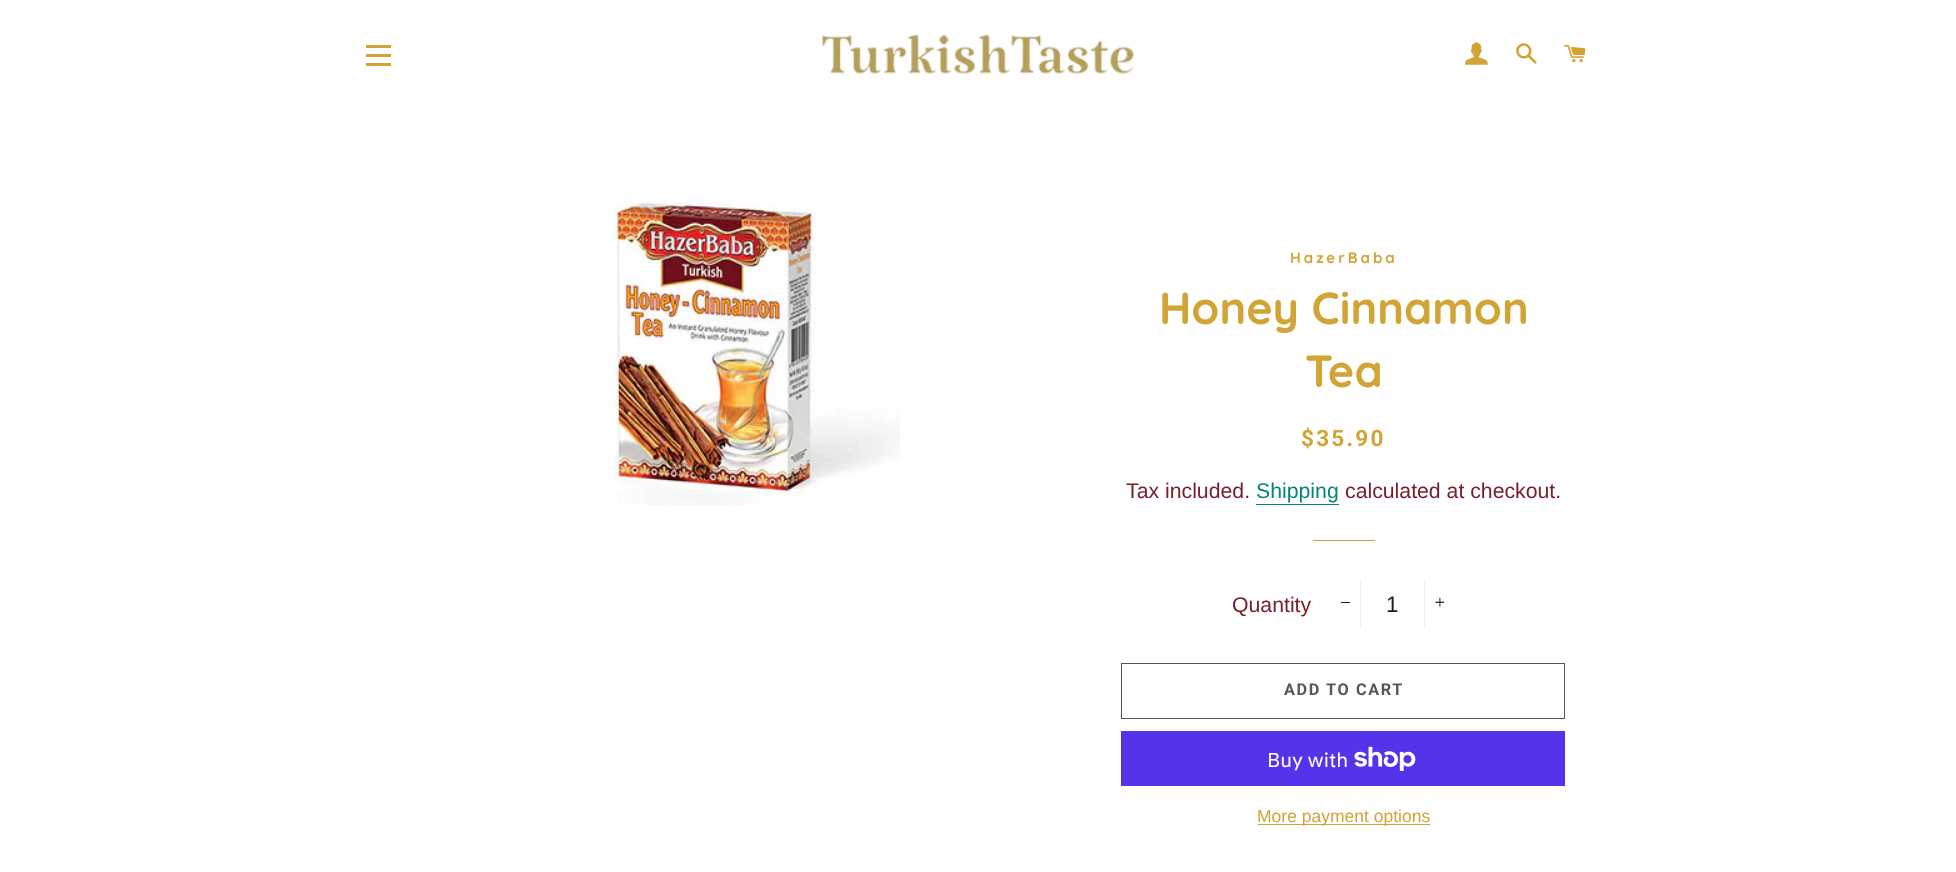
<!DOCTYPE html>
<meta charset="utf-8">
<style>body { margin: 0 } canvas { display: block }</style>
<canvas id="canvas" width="1956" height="872"></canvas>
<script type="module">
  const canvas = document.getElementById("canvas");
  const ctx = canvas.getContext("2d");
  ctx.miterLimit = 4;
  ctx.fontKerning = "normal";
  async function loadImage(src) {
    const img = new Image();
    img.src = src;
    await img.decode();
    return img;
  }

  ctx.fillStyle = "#ffffff";
  ctx.fillRect(0, 0, 1956, 872);
  ctx.fillStyle = "#d2a335";
  ctx.fillRect(366, 45, 25, 3);
  ctx.fillRect(366, 54, 25, 3);
  ctx.fillRect(366, 63, 25, 3);
  ctx.drawImage(await loadImage("img1.png"), 822, 34, 312, 40);
  ctx.drawImage(await loadImage("img2.png"), 1465, 42, 23, 23);
  ctx.drawImage(await loadImage("img3.png"), 1516, 43, 21, 21);
  ctx.drawImage(await loadImage("img4.png"), 1564, 44, 22, 19);
  ctx.drawImage(await loadImage("img5.png"), 615, 202, 285, 303);
  ctx.letterSpacing = "3px";
  ctx.font = "bold 15px Quicksand";
  ctx.fillText("HazerBaba", 1290, 263);
  ctx.letterSpacing = "0px";
  ctx.font = "bold 45px Quicksand";
  ctx.fillText("Honey Cinnamon", 1159, 324);
  ctx.fillText("Tea", 1305, 387);
  ctx.letterSpacing = "2.25px";
  ctx.font = "bold 22.5px Roboto";
  ctx.fillText("$35.90", 1301, 446);
  ctx.letterSpacing = "0px";
  ctx.font = "21.25px Liberation Sans";
  ctx.fillStyle = "#76202c";
  ctx.fillText("Tax included.", 1126, 498);
  ctx.fillStyle = "#058677";
  ctx.fillText("Shipping", 1256, 498);
  ctx.fillRect(1256, 504, 83, 1);
  ctx.fillStyle = "#76202c";
  ctx.fillText("calculated at checkout.", 1345, 498);
  ctx.fillStyle = "#d2a335";
  ctx.fillRect(1313, 540, 62, 1);
  ctx.fillStyle = "#76202c";
  ctx.fillText("Quantity", 1232, 612);
  ctx.fillStyle = "#f2f2f2";
  ctx.fillRect(1360, 579, 1, 50);
  ctx.fillStyle = "#1c1d1d";
  ctx.fillRect(1341, 602, 9, 1);
  ctx.font = "22.5px Liberation Sans";
  ctx.fillText("1", 1386, 612);
  ctx.fillStyle = "#f2f2f2";
  ctx.fillRect(1424, 579, 1, 50);
  ctx.drawImage(await loadImage("img6.png"), 1435, 597, 10, 10);
  ctx.strokeStyle = "#565656";
  ctx.strokeRect(1121.5, 663.5, 443, 55);
  ctx.letterSpacing = "1.6px";
  ctx.font = "bold 16.25px Roboto";
  ctx.fillStyle = "#565656";
  ctx.fillText("ADD TO CART", 1284, 695);
  ctx.fillStyle = "#5433eb";
  ctx.fillRect(1121, 731, 444, 55);
  ctx.letterSpacing = "0px";
  ctx.font = "20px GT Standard";
  ctx.fillStyle = "#ffffff";
  ctx.fillText("Buy with", 1267, 767);
  ctx.drawImage(await loadImage("img7.png"), 1354, 746, 62, 25);
  ctx.fillStyle = "#d2a335";
  ctx.fillRect(1258, 824, 172, 1);
  ctx.font = "17.5px Liberation Sans";
  ctx.fillText("More payment options", 1257, 822);
</script>
